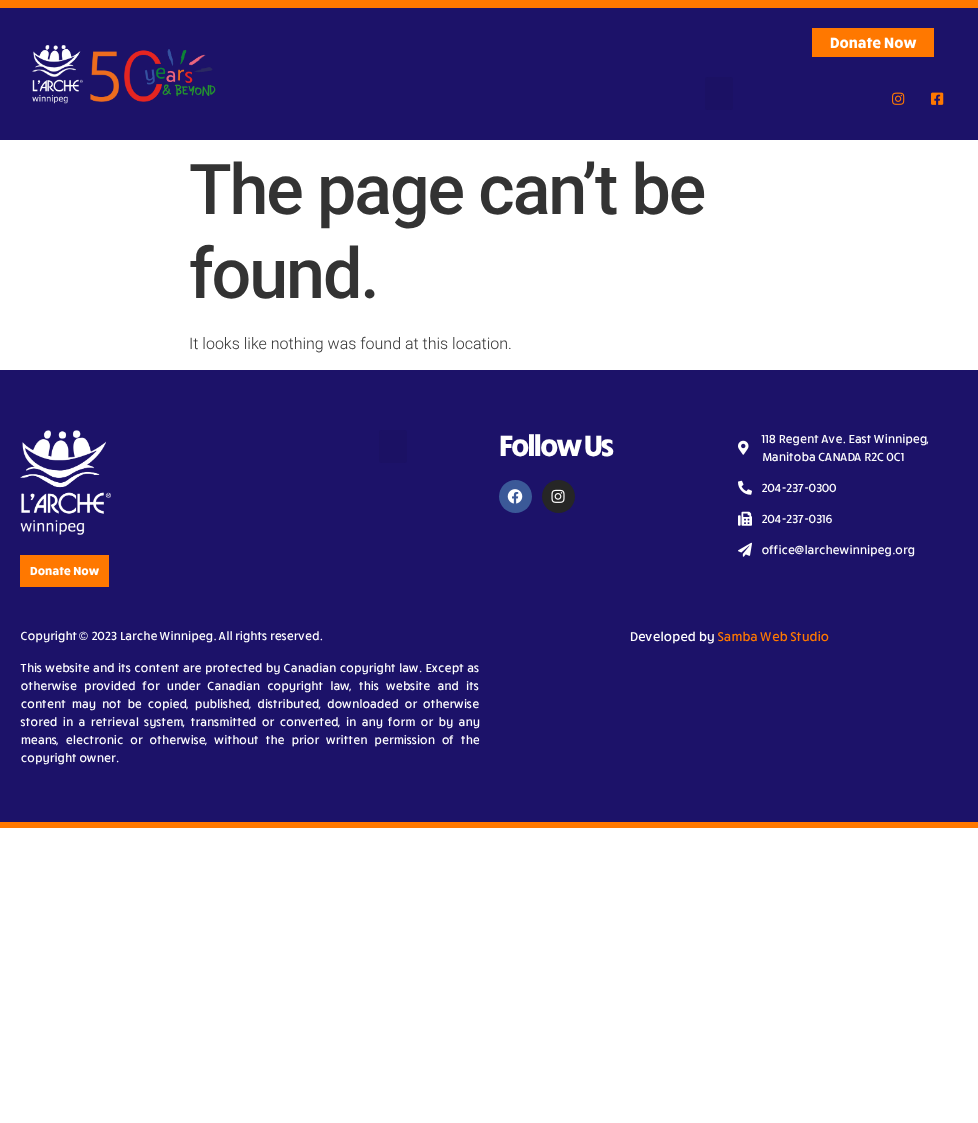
<!DOCTYPE html>
<meta charset="utf-8">
<style>body { margin: 0 } canvas { display: block }</style>
<canvas id="canvas" width="978" height="1123"></canvas>
<script type="module">
  const canvas = document.getElementById("canvas");
  const ctx = canvas.getContext("2d");
  ctx.miterLimit = 4;
  ctx.fontKerning = "normal";
  async function loadImage(src) {
    const img = new Image();
    img.src = src;
    await img.decode();
    return img;
  }

  ctx.fillStyle = "#ffffff";
  ctx.fillRect(0, 0, 978, 1123);
  ctx.fillStyle = "#1c1269";
  ctx.fillRect(0, 8, 978, 132);
  ctx.fillStyle = "#ff7800";
  ctx.fillRect(0, 0, 978, 8);
  ctx.fillRect(812, 28, 122, 29);
  ctx.font = "bold 15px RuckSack";
  ctx.fillStyle = "#ffffff";
  ctx.fillText("Donate Now", 830, 48);
  ctx.fillStyle = "#1b1164";
  ctx.beginPath();
  ctx.roundRect(705, 77, 28, 33, 3);
  ctx.fill();
  ctx.drawImage(await loadImage("img1.png"), 892, 92, 13, 13);
  ctx.drawImage(await loadImage("img2.png"), 931, 92, 13, 13);
  ctx.drawImage(await loadImage("img3.png"), 32, 45, 184, 59);
  ctx.letterSpacing = "-2.1px";
  ctx.font = "500 70px Roboto";
  ctx.fillStyle = "#333333";
  ctx.fillText("The page can’t be", 189, 214);
  ctx.fillText("found.", 189, 298);
  ctx.letterSpacing = "0px";
  ctx.font = "300 16px Roboto";
  ctx.fillText("It looks like nothing was found at this location.", 189, 349);
  ctx.fillStyle = "#1c1269";
  ctx.fillRect(0, 370, 978, 452);
  ctx.fillStyle = "#ff7800";
  ctx.fillRect(0, 822, 978, 6);
  ctx.fillStyle = "#1b1164";
  ctx.beginPath();
  ctx.roundRect(379, 430, 28, 33, 3);
  ctx.fill();
  ctx.letterSpacing = "-2.1px";
  ctx.font = "bold 30px RuckSack";
  ctx.fillStyle = "#ffffff";
  ctx.fillText("Follow Us", 499, 456);
  ctx.fillStyle = "#3b5998";
  ctx.beginPath();
  ctx.arc(515.5, 496.5, 16.5, 0, Math.PI * 2);
  ctx.fill();
  ctx.drawImage(await loadImage("img4.png"), 507, 489, 16, 15);
  ctx.fillStyle = "#262626";
  ctx.beginPath();
  ctx.arc(558.5, 496.5, 16.5, 0, Math.PI * 2);
  ctx.fill();
  ctx.drawImage(await loadImage("img5.png"), 551, 489, 14, 14);
  ctx.drawImage(await loadImage("img6.png"), 738, 440, 11, 15);
  ctx.letterSpacing = "0px";
  ctx.font = "500 12px RuckSack";
  ctx.fillStyle = "#ffffff";
  ctx.fillText("118 Regent Ave. East Winnipeg,", 761, 443);
  ctx.fillText("Manitoba CANADA R2C 0C1", 761, 461);
  ctx.drawImage(await loadImage("img7.png"), 738, 480, 14, 15);
  ctx.fillText("204-237-0300", 761, 492);
  ctx.drawImage(await loadImage("img8.png"), 738, 511, 14, 15);
  ctx.fillText("204-237-0316", 761, 523);
  ctx.drawImage(await loadImage("img9.png"), 738, 542, 14, 15);
  ctx.fillText("office@larchewinnipeg.org", 761, 554);
  ctx.drawImage(await loadImage("img10.png"), 20, 430, 91, 105);
  ctx.fillStyle = "#ff7800";
  ctx.fillRect(20, 555, 89, 32);
  ctx.font = "bold 12px RuckSack";
  ctx.fillStyle = "#ffffff";
  ctx.fillText("Donate Now", 30, 575);
  ctx.font = "500 12px RuckSack";
  ctx.fillText("Copyright", 20, 640);
  ctx.font = "12px Liberation Sans";
  ctx.fillText("©", 79, 640);
  ctx.font = "500 12px RuckSack";
  ctx.fillText("2023 Larche Winnipeg. All rights reserved.", 91, 640);
  ctx.wordSpacing = "0.75px";
  ctx.fillText("This website and its content are protected by Canadian copyright law. Except as", 20, 672);
  ctx.wordSpacing = "4.5px";
  ctx.fillText("otherwise provided for under Canadian copyright law, this website and its", 20, 690);
  ctx.wordSpacing = "3.25px";
  ctx.fillText("content may not be copied, published, distributed, downloaded or otherwise", 20, 708);
  ctx.wordSpacing = "2.75px";
  ctx.fillText("stored in a retrieval system, transmitted or converted, in any form or by any", 20, 726);
  ctx.wordSpacing = "4.25px";
  ctx.fillText("means, electronic or otherwise, without the prior written permission of the", 20, 744);
  ctx.wordSpacing = "0px";
  ctx.fillText("copyright owner.", 20, 762);
  ctx.font = "500 13px RuckSack";
  ctx.fillText("Developed by", 629, 641);
  ctx.fillStyle = "#ff7800";
  ctx.fillText("Samba Web Studio", 717, 641);
</script>
